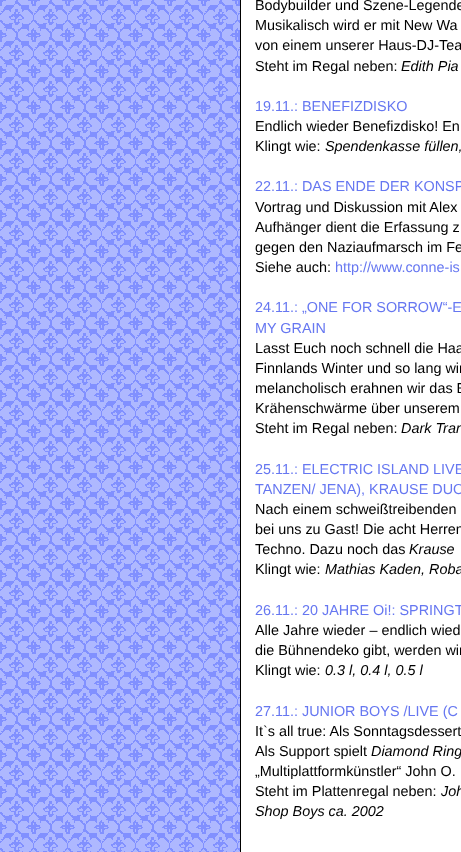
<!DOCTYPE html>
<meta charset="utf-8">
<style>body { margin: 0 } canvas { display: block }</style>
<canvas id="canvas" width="461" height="852"></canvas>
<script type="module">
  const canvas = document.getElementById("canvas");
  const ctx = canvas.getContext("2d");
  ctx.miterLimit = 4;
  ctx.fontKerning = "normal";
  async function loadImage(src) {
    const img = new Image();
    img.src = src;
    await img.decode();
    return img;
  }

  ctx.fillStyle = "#ffffff";
  ctx.fillRect(0, 0, 461, 852);
  ctx.drawImage(await loadImage("img1.png"), 0, 0, 240, 852);
  ctx.strokeStyle = "#000000";
  ctx.strokeRect(240.5, -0.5, 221, 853);
  ctx.font = "14.4px Liberation Sans";
  ctx.fillStyle = "#000000";
  ctx.fillText("Bodybuilder und Szene-Legende", 255, 10);
  ctx.fillText("Musikalisch wird er mit New Wa", 255, 30);
  ctx.fillText("von einem unserer Haus-DJ-Tea", 255, 50);
  ctx.fillText("Steht im Regal neben:", 255, 71);
  ctx.font = "italic 14.4px Liberation Sans";
  ctx.fillText("Edith Pia", 401, 71);
  ctx.font = "14.4px Liberation Sans";
  ctx.fillStyle = "#6677f1";
  ctx.fillText("19.11.: BENEFIZDISKO", 255, 111);
  ctx.fillStyle = "#000000";
  ctx.fillText("Endlich wieder Benefizdisko! En", 255, 131);
  ctx.fillText("Klingt wie:", 255, 151);
  ctx.font = "italic 14.4px Liberation Sans";
  ctx.fillText("Spendenkasse füllen,", 325, 151);
  ctx.font = "14.4px Liberation Sans";
  ctx.fillStyle = "#6677f1";
  ctx.fillText("22.11.: DAS ENDE DER KONSP", 255, 191);
  ctx.fillStyle = "#000000";
  ctx.fillText("Vortrag und Diskussion mit Alex", 255, 212);
  ctx.fillText("Aufhänger dient die Erfassung z", 255, 232);
  ctx.fillText("gegen den Naziaufmarsch im Fe", 255, 252);
  ctx.fillText("Siehe auch:", 255, 272);
  ctx.fillStyle = "#6677f1";
  ctx.fillText("http://www.conne-is", 335, 272);
  ctx.fillText("24.11.: „ONE FOR SORROW“-E", 255, 312);
  ctx.fillText("MY GRAIN", 255, 333);
  ctx.fillStyle = "#000000";
  ctx.fillText("Lasst Euch noch schnell die Haa", 255, 353);
  ctx.fillText("Finnlands Winter und so lang wir", 255, 373);
  ctx.fillText("melancholisch erahnen wir das E", 255, 393);
  ctx.fillText("Krähenschwärme über unserem", 255, 413);
  ctx.fillText("Steht im Regal neben:", 255, 433);
  ctx.font = "italic 14.4px Liberation Sans";
  ctx.fillText("Dark Tran", 401, 433);
  ctx.font = "14.4px Liberation Sans";
  ctx.fillStyle = "#6677f1";
  ctx.fillText("25.11.: ELECTRIC ISLAND LIVE", 255, 474);
  ctx.fillText("TANZEN/ JENA), KRAUSE DUO", 255, 494);
  ctx.fillStyle = "#000000";
  ctx.fillText("Nach einem schweißtreibenden", 255, 514);
  ctx.fillText("bei uns zu Gast! Die acht Herren", 255, 534);
  ctx.fillText("Techno. Dazu noch das", 255, 554);
  ctx.font = "italic 14.4px Liberation Sans";
  ctx.fillText("Krause", 409, 554);
  ctx.font = "14.4px Liberation Sans";
  ctx.fillText("Klingt wie:", 255, 574);
  ctx.font = "italic 14.4px Liberation Sans";
  ctx.fillText("Mathias Kaden, Roba", 325, 574);
  ctx.font = "14.4px Liberation Sans";
  ctx.fillStyle = "#6677f1";
  ctx.fillText("26.11.: 20 JAHRE Oi!: SPRINGT", 255, 615);
  ctx.fillStyle = "#000000";
  ctx.fillText("Alle Jahre wieder – endlich wied", 255, 635);
  ctx.fillText("die Bühnendeko gibt, werden wir", 255, 655);
  ctx.fillText("Klingt wie:", 255, 675);
  ctx.font = "italic 14.4px Liberation Sans";
  ctx.fillText("0.3 l, 0.4 l, 0.5 l", 325, 675);
  ctx.font = "14.4px Liberation Sans";
  ctx.fillStyle = "#6677f1";
  ctx.fillText("27.11.: JUNIOR BOYS /LIVE (C", 255, 716);
  ctx.fillStyle = "#000000";
  ctx.fillText("It`s all true: Als Sonntagsdessert", 255, 736);
  ctx.fillText("Als Support spielt", 255, 756);
  ctx.font = "italic 14.4px Liberation Sans";
  ctx.fillText("Diamond Ring", 371, 756);
  ctx.font = "14.4px Liberation Sans";
  ctx.fillText("„Multiplattformkünstler“ John O.", 255, 776);
  ctx.fillText("Steht im Plattenregal neben:", 255, 796);
  ctx.font = "italic 14.4px Liberation Sans";
  ctx.fillText("Joh", 441, 796);
  ctx.fillText("Shop Boys ca. 2002", 255, 816);
</script>
